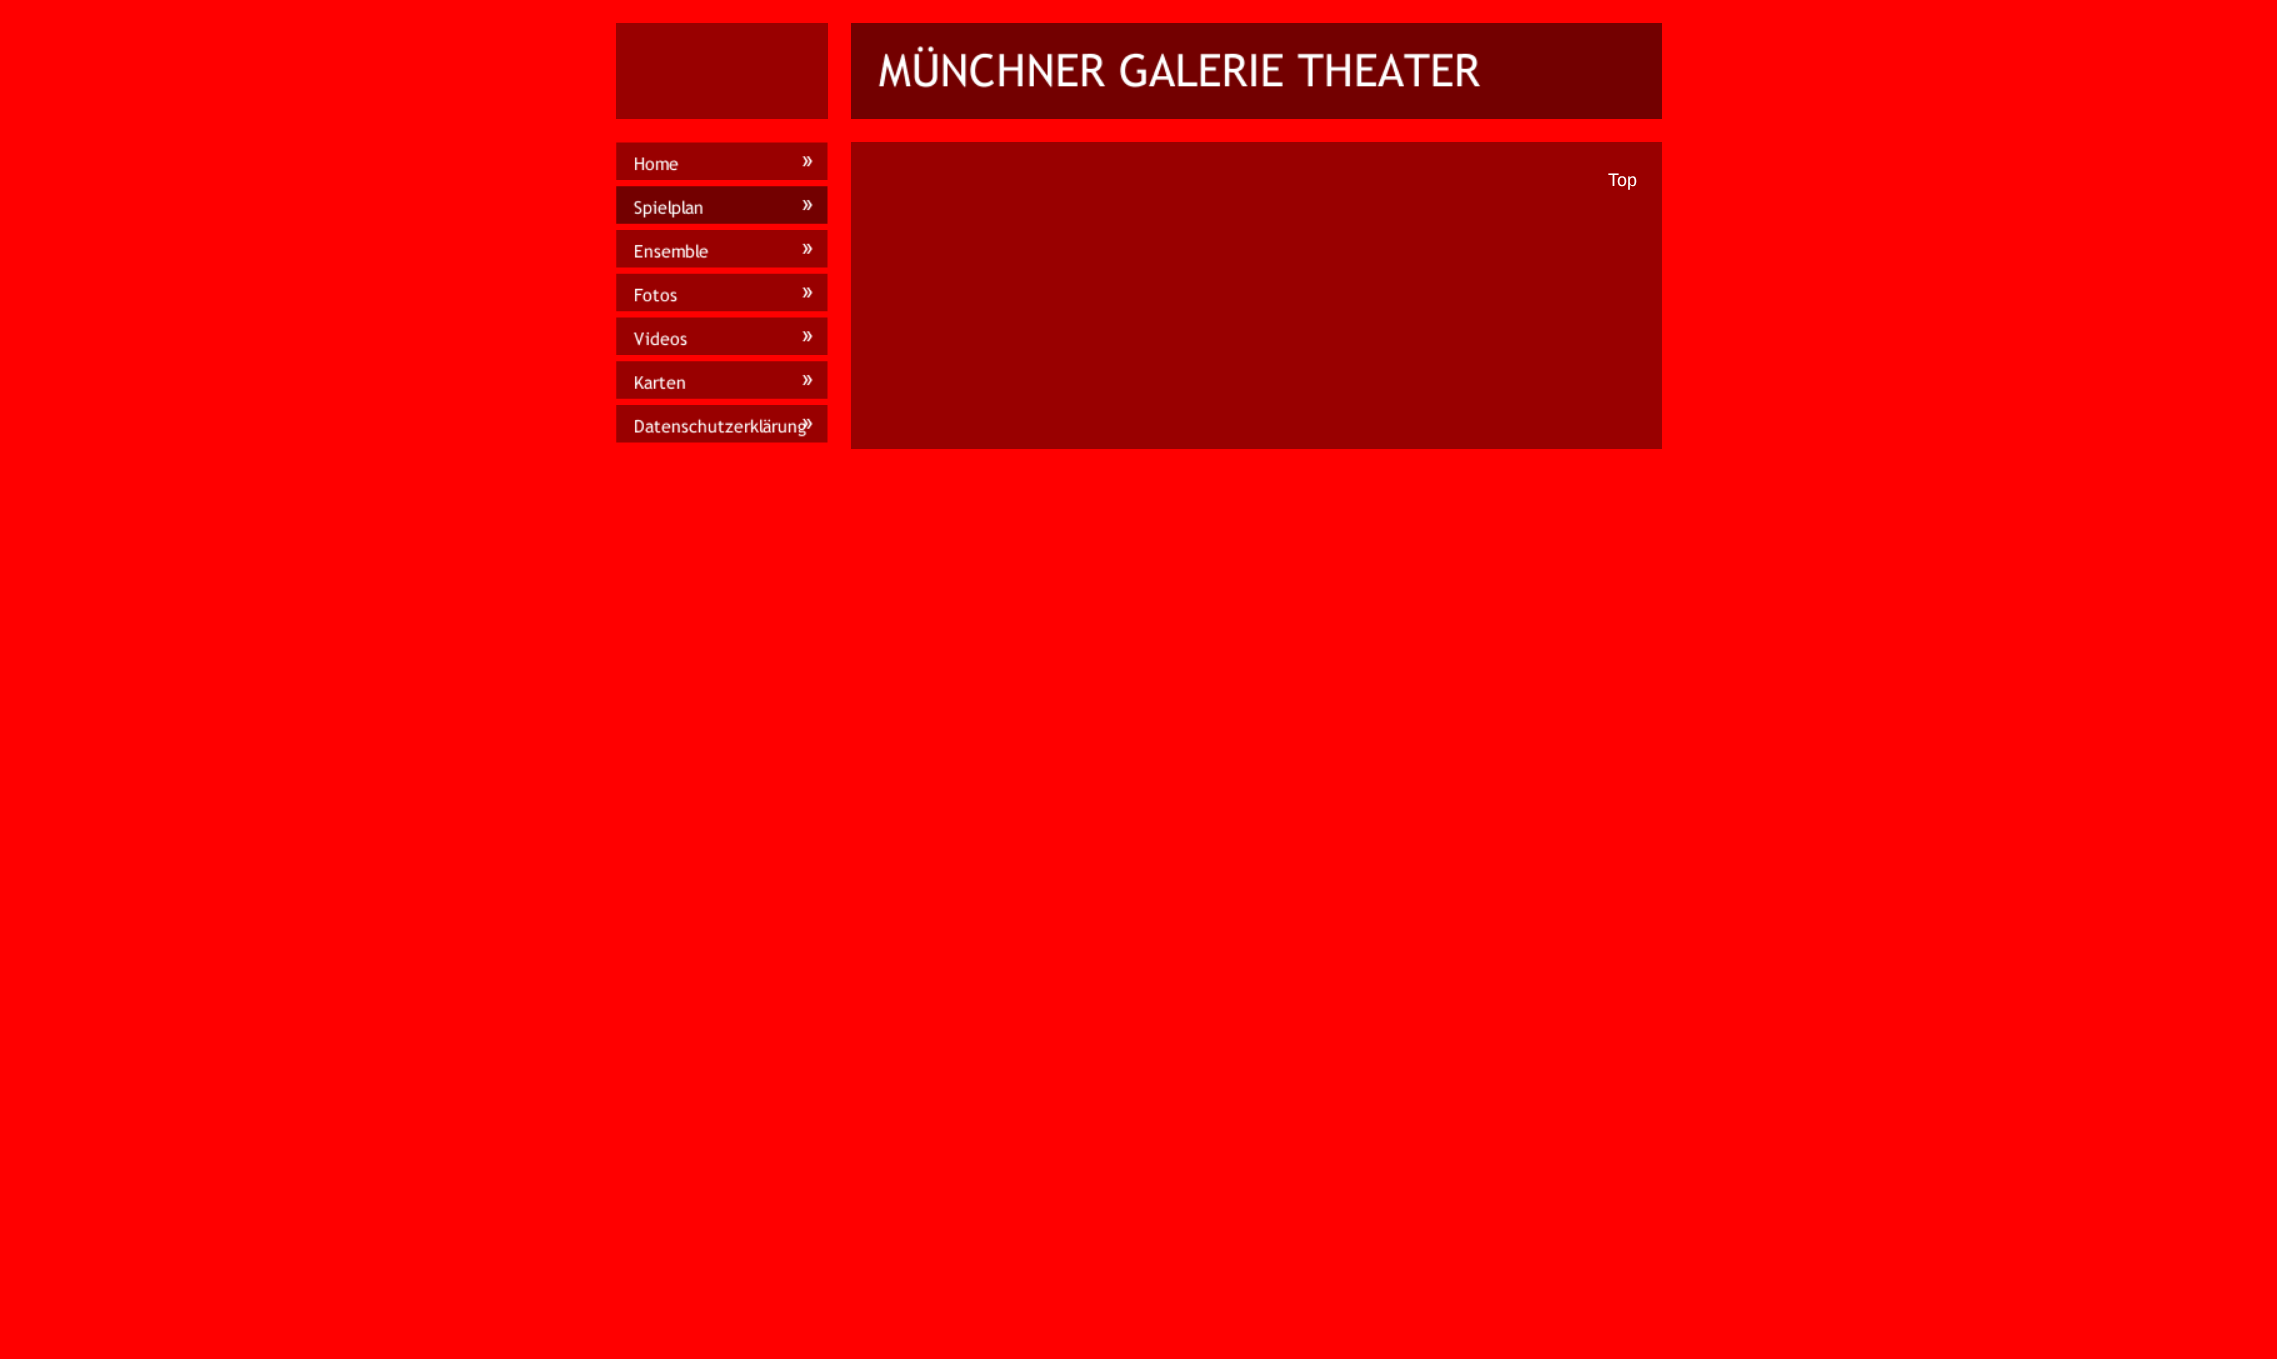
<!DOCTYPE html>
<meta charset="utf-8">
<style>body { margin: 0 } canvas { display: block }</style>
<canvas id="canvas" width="2277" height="1359"></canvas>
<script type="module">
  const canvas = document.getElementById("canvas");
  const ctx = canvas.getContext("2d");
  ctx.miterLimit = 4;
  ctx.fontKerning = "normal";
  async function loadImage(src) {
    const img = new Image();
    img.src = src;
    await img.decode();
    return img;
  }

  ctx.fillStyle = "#ff0000";
  ctx.fillRect(0, 0, 2277, 1359);
  ctx.fillStyle = "#990000";
  ctx.fillRect(616, 23, 212, 96);
  ctx.fillStyle = "#730000";
  ctx.fillRect(851, 23, 811, 96);
  ctx.drawImage(await loadImage("img1.png"), 878, 46, 603, 42);
  ctx.drawImage(await loadImage("img2.png"), 616, 142, 212, 38);
  ctx.drawImage(await loadImage("img3.png"), 616, 186, 212, 38);
  ctx.drawImage(await loadImage("img4.png"), 616, 230, 212, 38);
  ctx.drawImage(await loadImage("img5.png"), 616, 273, 212, 39);
  ctx.drawImage(await loadImage("img6.png"), 616, 317, 212, 38);
  ctx.drawImage(await loadImage("img7.png"), 616, 361, 212, 38);
  ctx.drawImage(await loadImage("img8.png"), 616, 405, 212, 38);
  ctx.fillStyle = "#990000";
  ctx.fillRect(851, 142, 811, 307);
  ctx.font = "18px Liberation Sans";
  ctx.fillStyle = "#ffffff";
  ctx.fillText("Top", 1608, 186);
</script>
